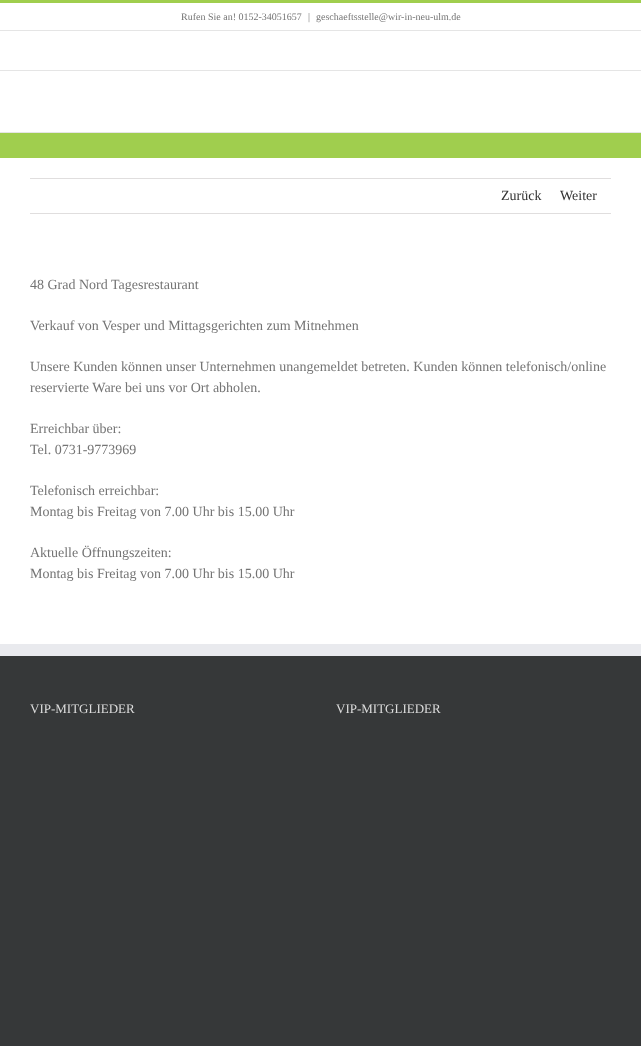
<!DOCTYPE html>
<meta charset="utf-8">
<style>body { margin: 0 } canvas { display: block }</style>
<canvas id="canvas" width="641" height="1046"></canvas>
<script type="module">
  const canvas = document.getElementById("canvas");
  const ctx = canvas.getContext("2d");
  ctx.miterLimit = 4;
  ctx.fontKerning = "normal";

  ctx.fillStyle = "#a0ce4e";
  ctx.fillRect(0, 0, 641, 1046);
  ctx.fillStyle = "#ffffff";
  ctx.fillRect(0, 3, 641, 67);
  ctx.fillStyle = "#e5e5e5";
  ctx.fillRect(0, 70, 641, 1);
  ctx.fillRect(0, 30, 641, 1);
  ctx.font = "10px Liberation Serif";
  ctx.fillStyle = "#747474";
  ctx.fillText("Rufen Sie an! 0152-34051657", 181, 20);
  ctx.fillText("|", 308, 20);
  ctx.fillText("geschaeftsstelle@wir-in-neu-ulm.de", 316, 20);
  ctx.fillStyle = "#ffffff";
  ctx.fillRect(0, 71, 641, 61);
  ctx.fillStyle = "#e5e5e5";
  ctx.fillRect(0, 132, 641, 1);
  ctx.fillStyle = "#ffffff";
  ctx.fillRect(0, 158, 641, 486);
  ctx.fillStyle = "#e0dede";
  ctx.fillRect(30, 178, 581, 1);
  ctx.fillRect(30, 213, 581, 1);
  ctx.font = "14px Liberation Serif";
  ctx.fillStyle = "#333333";
  ctx.fillText("Zurück", 501, 200);
  ctx.fillText("Weiter", 560, 200);
  ctx.fillStyle = "#747474";
  ctx.fillText("48 Grad Nord Tagesrestaurant", 30, 289);
  ctx.fillText("Verkauf von Vesper und Mittagsgerichten zum Mitnehmen", 30, 330);
  ctx.fillText("Unsere Kunden können unser Unternehmen unangemeldet betreten. Kunden können telefonisch/online", 30, 371);
  ctx.fillText("reservierte Ware bei uns vor Ort abholen.", 30, 392);
  ctx.fillText("Erreichbar über:", 30, 433);
  ctx.fillText("Tel. 0731-9773969", 30, 454);
  ctx.fillText("Telefonisch erreichbar:", 30, 495);
  ctx.fillText("Montag bis Freitag von 7.00 Uhr bis 15.00 Uhr", 30, 516);
  ctx.fillText("Aktuelle Öffnungszeiten:", 30, 557);
  ctx.fillText("Montag bis Freitag von 7.00 Uhr bis 15.00 Uhr", 30, 578);
  ctx.fillStyle = "#363839";
  ctx.fillRect(0, 656, 641, 390);
  ctx.fillStyle = "#e9eaee";
  ctx.fillRect(0, 644, 641, 12);
  ctx.font = "13px Liberation Serif";
  ctx.fillStyle = "#dddddd";
  ctx.fillText("VIP-MITGLIEDER", 30, 713);
  ctx.fillText("VIP-MITGLIEDER", 336, 713);
</script>
